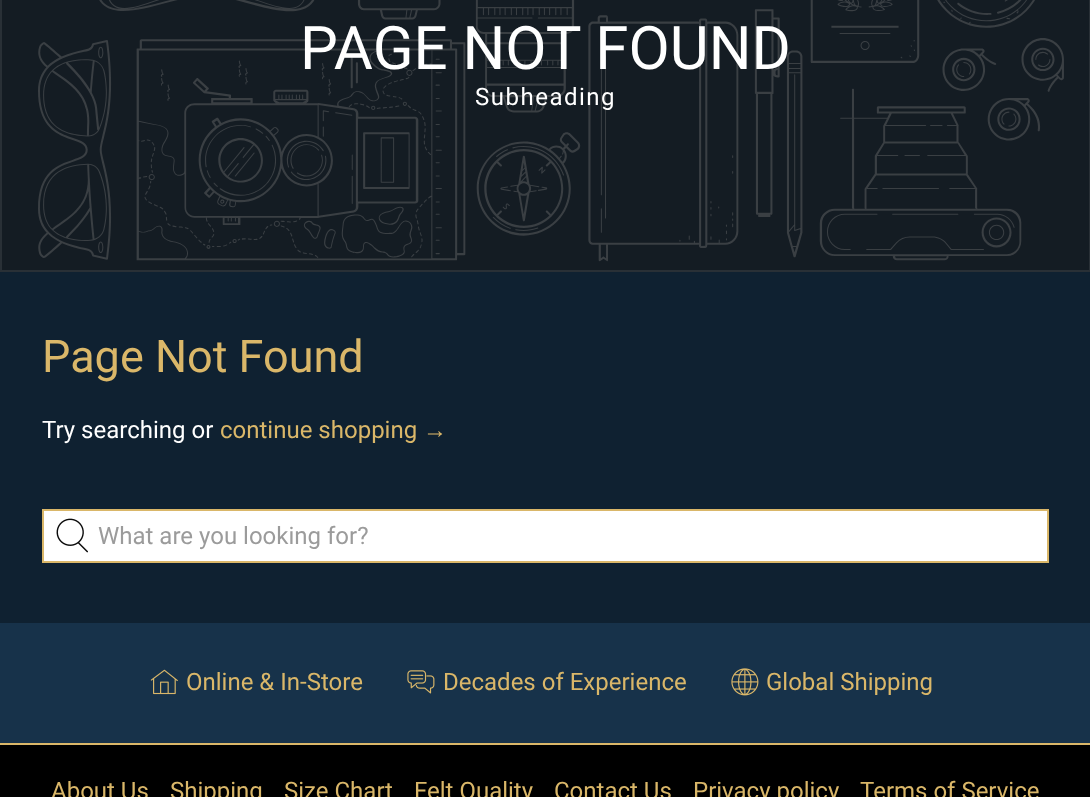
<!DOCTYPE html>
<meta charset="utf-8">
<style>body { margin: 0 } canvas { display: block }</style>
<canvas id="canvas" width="1090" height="797"></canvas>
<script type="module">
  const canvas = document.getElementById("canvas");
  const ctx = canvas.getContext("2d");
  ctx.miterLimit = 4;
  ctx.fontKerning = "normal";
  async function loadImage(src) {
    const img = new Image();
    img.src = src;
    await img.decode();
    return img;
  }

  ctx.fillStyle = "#0f2131";
  ctx.fillRect(0, 0, 1090, 797);
  ctx.fillStyle = "#141c23";
  ctx.beginPath();
  ctx.rect(1, -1, 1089, 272);
  ctx.fill();
  ctx.strokeStyle = "#293036";
  ctx.lineWidth = 2;
  ctx.stroke();
  ctx.drawImage(await loadImage("img1.png"), 38, 0, 1026, 262);
  ctx.font = "60px Roboto";
  ctx.fillStyle = "#ffffff";
  ctx.fillText("PAGE NOT FOUND", 300, 69);
  ctx.letterSpacing = "1.5px";
  ctx.font = "24px Roboto";
  ctx.fillText("Subheading", 475, 105);
  ctx.letterSpacing = "0px";
  ctx.font = "45px Roboto";
  ctx.fillStyle = "#dab769";
  ctx.fillText("Page Not Found", 42, 372);
  ctx.font = "24px Roboto";
  ctx.fillStyle = "#ffffff";
  ctx.fillText("Try searching or", 42, 438);
  ctx.fillStyle = "#dab769";
  ctx.fillText("continue shopping", 220, 438);
  ctx.font = "24px Liberation Sans";
  ctx.fillText("→", 423, 438);
  ctx.fillStyle = "#ffffff";
  ctx.beginPath();
  ctx.rect(43, 510, 1005, 52);
  ctx.fill();
  ctx.strokeStyle = "#dab769";
  ctx.stroke();
  ctx.drawImage(await loadImage("img2.png"), 56, 518, 32, 35);
  ctx.font = "24px Roboto";
  ctx.fillStyle = "#9b9b9b";
  ctx.fillText("What are you looking for?", 98, 544);
  ctx.fillStyle = "#17324a";
  ctx.fillRect(0, 623, 1090, 120);
  ctx.drawImage(await loadImage("img3.png"), 150, 669, 28, 26);
  ctx.fillStyle = "#dab769";
  ctx.fillText("Online & In-Store", 186, 690);
  ctx.drawImage(await loadImage("img4.png"), 407, 670, 28, 24);
  ctx.fillText("Decades of Experience", 443, 690);
  ctx.drawImage(await loadImage("img5.png"), 731, 668, 28, 28);
  ctx.fillText("Global Shipping", 766, 690);
  ctx.fillStyle = "#000000";
  ctx.fillRect(0, 745, 1090, 52);
  ctx.fillStyle = "#dab769";
  ctx.fillRect(0, 743, 1090, 2);
  ctx.fillText("About Us", 51, 799);
  ctx.fillText("Shipping", 170, 799);
  ctx.fillText("Size Chart", 284, 799);
  ctx.fillText("Felt Quality", 414, 799);
  ctx.fillText("Contact Us", 554, 799);
  ctx.fillText("Privacy policy", 693, 799);
  ctx.fillText("Terms of Service", 860, 799);
</script>
